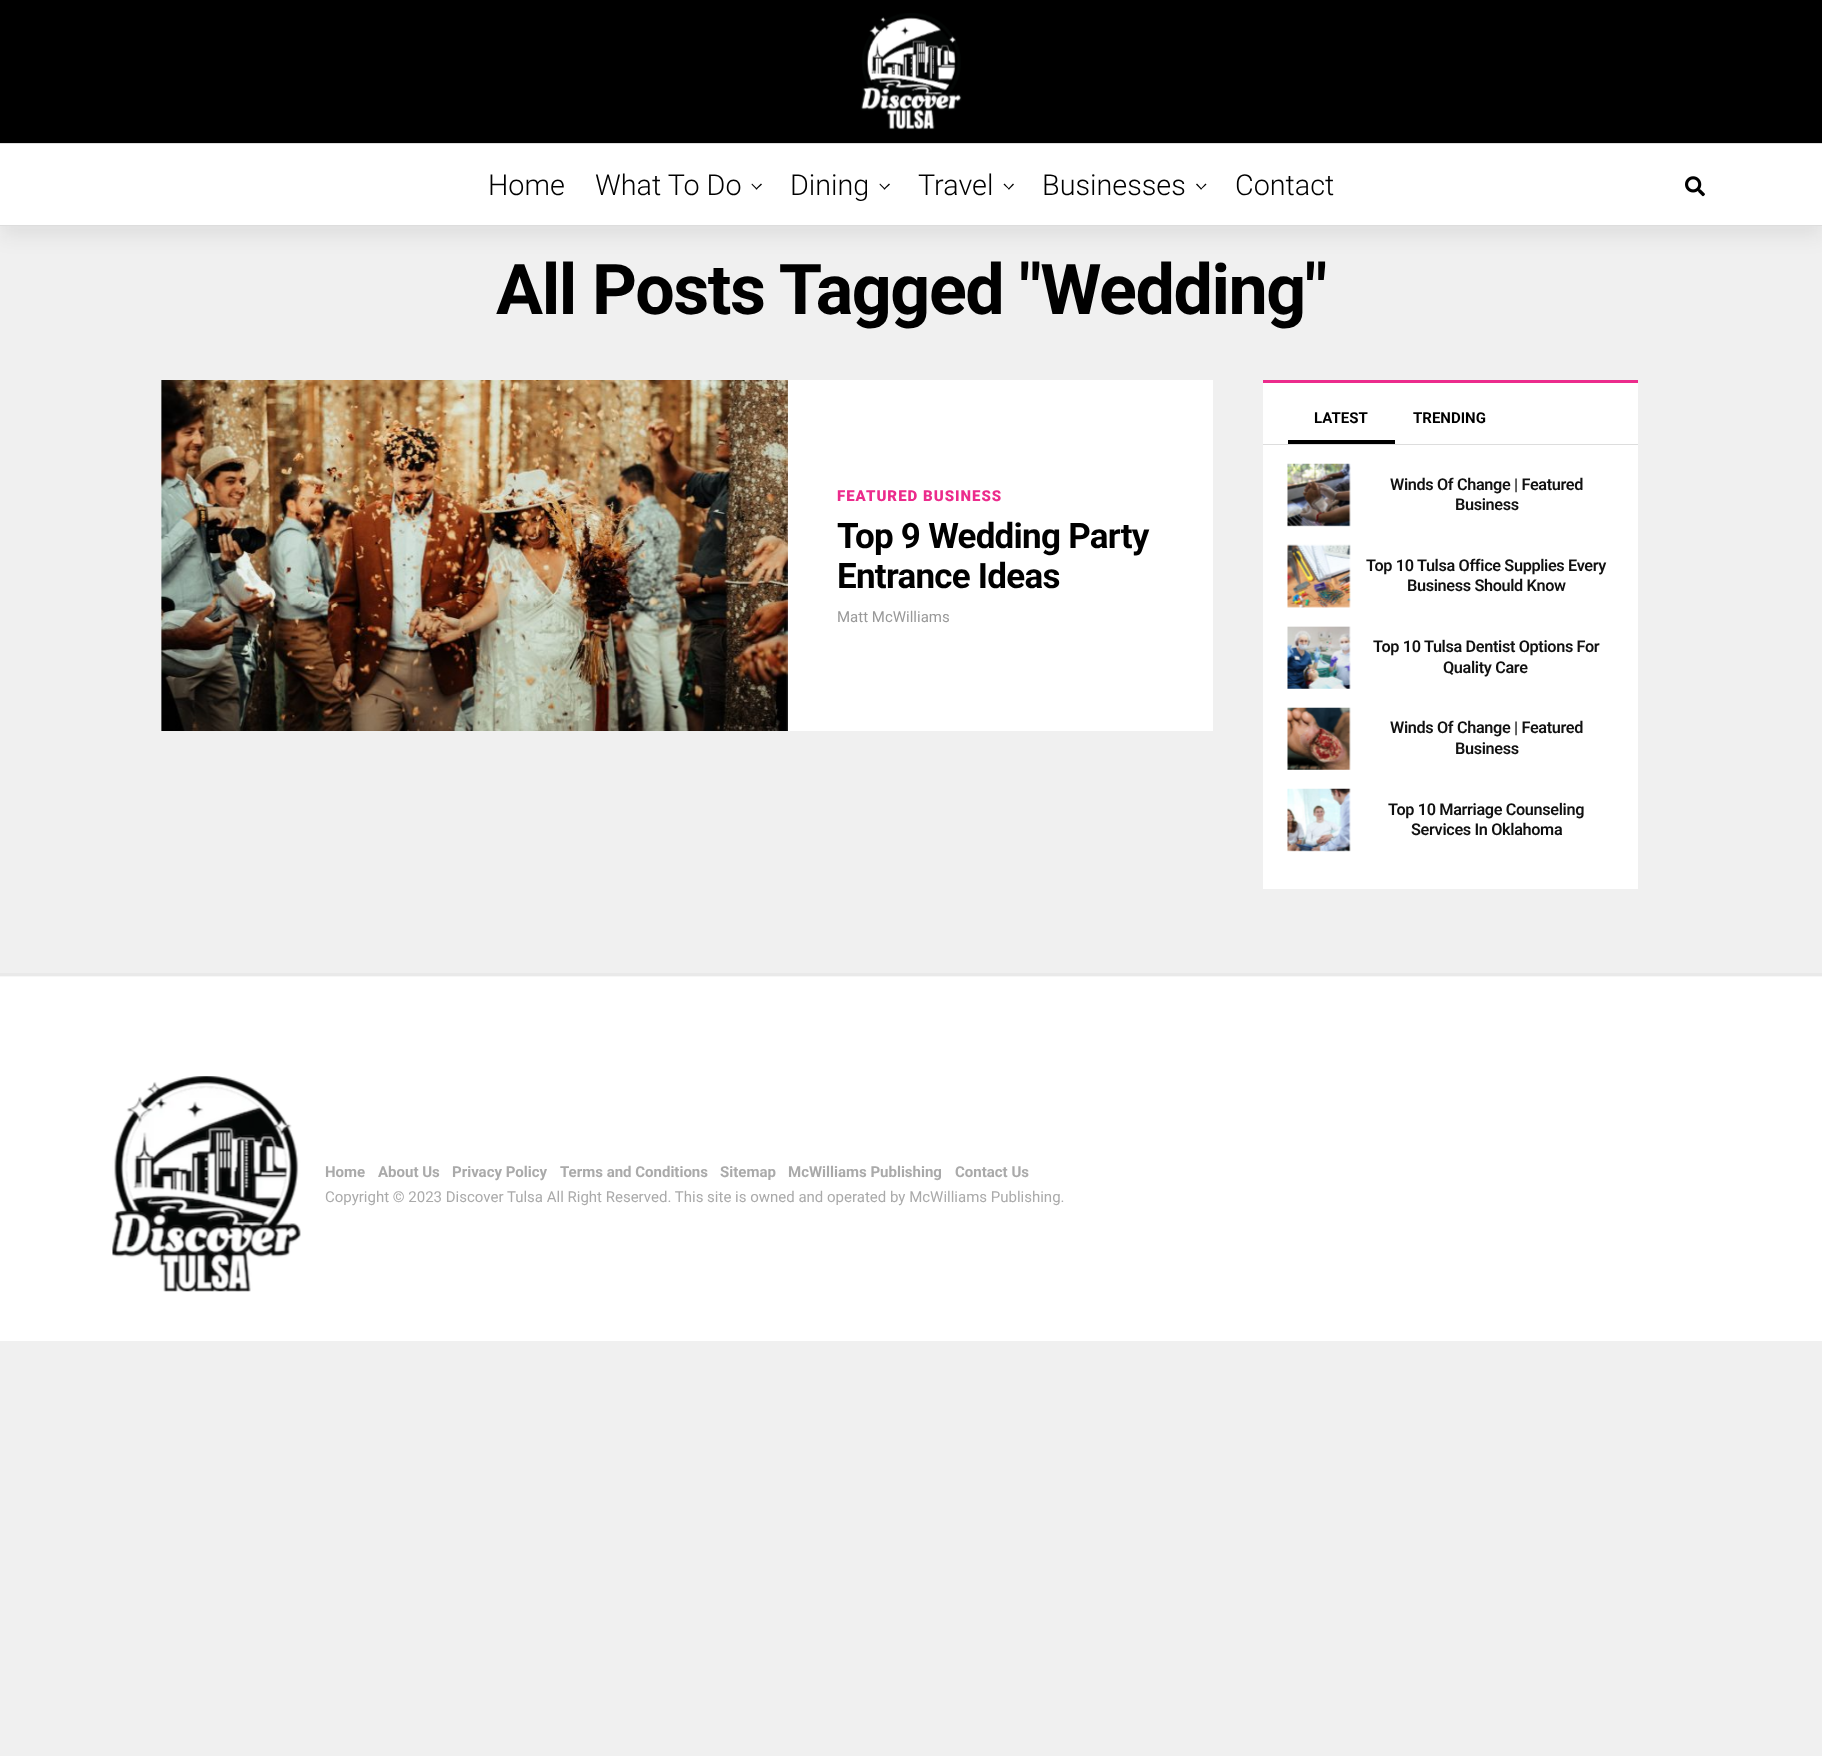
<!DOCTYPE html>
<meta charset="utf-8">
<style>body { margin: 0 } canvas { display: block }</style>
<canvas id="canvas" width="1822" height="1756"></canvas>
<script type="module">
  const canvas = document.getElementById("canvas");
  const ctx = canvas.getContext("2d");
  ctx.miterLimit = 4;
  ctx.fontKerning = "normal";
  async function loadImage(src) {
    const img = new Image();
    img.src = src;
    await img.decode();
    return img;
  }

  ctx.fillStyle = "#f0f0f0";
  ctx.fillRect(0, 0, 1822, 1756);
  ctx.fillStyle = "#e9e9e9";
  ctx.fillRect(0, 973, 1822, 3);
  ctx.fillStyle = "#000000";
  ctx.fillRect(0, 0, 1822, 143);
  ctx.drawImage(await loadImage("img1.png"), 860, 13, 102, 117);
  ctx.fillStyle = "rgba(21, 21, 30, 0.08)";
  ctx.filter = "blur(10px)";
  ctx.beginPath();
  ctx.rect(0, 153, 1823, 83);
  ctx.fill();
  ctx.filter = "none";
  ctx.fillStyle = "#ffffff";
  ctx.fillRect(0, 144, 1822, 81);
  ctx.fillStyle = "#dddddd";
  ctx.fillRect(0, 143, 1822, 1);
  ctx.fillRect(0, 225, 1822, 1);
  ctx.font = "300 28.75px Roboto";
  ctx.fillStyle = "#000000";
  ctx.fillText("Home", 488, 195);
  ctx.fillText("What To Do", 595, 195);
  ctx.beginPath();
  ctx.moveTo(761, 183.5);
  ctx.lineTo(762, 184.5);
  ctx.lineTo(756.5, 189.5);
  ctx.lineTo(755.5, 189);
  ctx.closePath();
  ctx.fill();
  ctx.beginPath();
  ctx.moveTo(752, 183.5);
  ctx.lineTo(757.5, 189);
  ctx.lineTo(756.5, 189.5);
  ctx.lineTo(751.5, 184.5);
  ctx.closePath();
  ctx.fill();
  ctx.fillText("Dining", 790, 195);
  ctx.beginPath();
  ctx.moveTo(889, 183.5);
  ctx.lineTo(890, 184.5);
  ctx.lineTo(884.5, 189.5);
  ctx.lineTo(883.5, 189);
  ctx.closePath();
  ctx.fill();
  ctx.beginPath();
  ctx.moveTo(880, 183.5);
  ctx.lineTo(885.5, 189);
  ctx.lineTo(884.5, 189.5);
  ctx.lineTo(879.5, 184.5);
  ctx.closePath();
  ctx.fill();
  ctx.fillText("Travel", 918, 195);
  ctx.beginPath();
  ctx.moveTo(1013, 183.5);
  ctx.lineTo(1014, 184.5);
  ctx.lineTo(1009, 189.5);
  ctx.lineTo(1008, 189);
  ctx.closePath();
  ctx.fill();
  ctx.beginPath();
  ctx.moveTo(1004.5, 183.5);
  ctx.lineTo(1009.5, 189);
  ctx.lineTo(1009, 189.5);
  ctx.lineTo(1003.5, 184.5);
  ctx.closePath();
  ctx.fill();
  ctx.fillText("Businesses", 1042, 195);
  ctx.beginPath();
  ctx.moveTo(1205.5, 183.5);
  ctx.lineTo(1206.5, 184.5);
  ctx.lineTo(1201, 189.5);
  ctx.lineTo(1200.5, 189);
  ctx.closePath();
  ctx.fill();
  ctx.beginPath();
  ctx.moveTo(1197, 183.5);
  ctx.lineTo(1202, 189);
  ctx.lineTo(1201, 189.5);
  ctx.lineTo(1196, 184.5);
  ctx.closePath();
  ctx.fill();
  ctx.fillText("Contact", 1235, 195);
  ctx.drawImage(await loadImage("img2.png"), 1685, 176, 20, 21);
  ctx.letterSpacing = "-1.4px";
  ctx.font = "bold 70px Roboto";
  ctx.fillText("All Posts Tagged \"Wedding\"", 496, 314);
  ctx.fillStyle = "#ffffff";
  ctx.fillRect(161, 380, 1052, 351);
  ctx.drawImage(await loadImage("img3.png"), 161, 380, 627, 351);
  ctx.letterSpacing = "1px";
  ctx.font = "900 15px Roboto";
  ctx.fillStyle = "#ec2b8c";
  ctx.fillText("FEATURED BUSINESS", 837, 501);
  ctx.letterSpacing = "-0.75px";
  ctx.font = "bold 35px Roboto";
  ctx.fillStyle = "#000000";
  ctx.fillText("Top 9 Wedding Party", 837, 548);
  ctx.fillText("Entrance Ideas", 837, 588);
  ctx.letterSpacing = "0px";
  ctx.font = "15px Roboto";
  ctx.fillStyle = "#999999";
  ctx.fillText("Matt McWilliams", 837, 622);
  ctx.fillStyle = "#ffffff";
  ctx.fillRect(1263, 383, 375, 506);
  ctx.fillStyle = "#ec2b8c";
  ctx.fillRect(1263, 380, 375, 3);
  ctx.fillStyle = "#dddddd";
  ctx.fillRect(1263, 444, 375, 1);
  ctx.fillStyle = "#000000";
  ctx.fillRect(1288, 440, 107, 4);
  ctx.font = "bold 15px Roboto";
  ctx.fillText("LATEST", 1314, 423);
  ctx.fillText("TRENDING", 1413, 423);
  ctx.drawImage(await loadImage("img4.png"), 1287, 463, 64, 64);
  ctx.letterSpacing = "-0.35px";
  ctx.font = "600 16.25px Roboto";
  ctx.fillStyle = "#111111";
  ctx.fillText("Winds Of Change | Featured", 1390, 490);
  ctx.fillText("Business", 1455, 510);
  ctx.drawImage(await loadImage("img5.png"), 1287, 544, 64, 64);
  ctx.fillText("Top 10 Tulsa Office Supplies Every", 1366, 571);
  ctx.fillText("Business Should Know", 1407, 591);
  ctx.drawImage(await loadImage("img6.png"), 1287, 626, 64, 63);
  ctx.fillText("Top 10 Tulsa Dentist Options For", 1373, 652);
  ctx.fillText("Quality Care", 1443, 673);
  ctx.drawImage(await loadImage("img7.png"), 1287, 707, 64, 63);
  ctx.fillText("Winds Of Change | Featured", 1390, 733);
  ctx.fillText("Business", 1455, 754);
  ctx.drawImage(await loadImage("img8.png"), 1287, 788, 64, 64);
  ctx.fillText("Top 10 Marriage Counseling", 1388, 815);
  ctx.fillText("Services In Oklahoma", 1411, 835);
  ctx.fillStyle = "#ffffff";
  ctx.fillRect(0, 977, 1822, 364);
  ctx.fillStyle = "#f7f7f7";
  ctx.fillRect(0, 976, 1822, 1);
  ctx.drawImage(await loadImage("img9.png"), 112, 1076, 189, 216);
  ctx.letterSpacing = "0px";
  ctx.font = "bold 15px Roboto";
  ctx.fillStyle = "#aaaaaa";
  ctx.fillText("Home", 325, 1177);
  ctx.fillText("About Us", 378, 1177);
  ctx.fillText("Privacy Policy", 452, 1177);
  ctx.fillText("Terms and Conditions", 560, 1177);
  ctx.fillText("Sitemap", 720, 1177);
  ctx.fillText("McWilliams Publishing", 788, 1177);
  ctx.fillText("Contact Us", 955, 1177);
  ctx.font = "15px Roboto";
  ctx.fillText("Copyright © 2023 Discover Tulsa All Right Reserved. This site is owned and operated by McWilliams Publishing.", 325, 1202);
</script>
